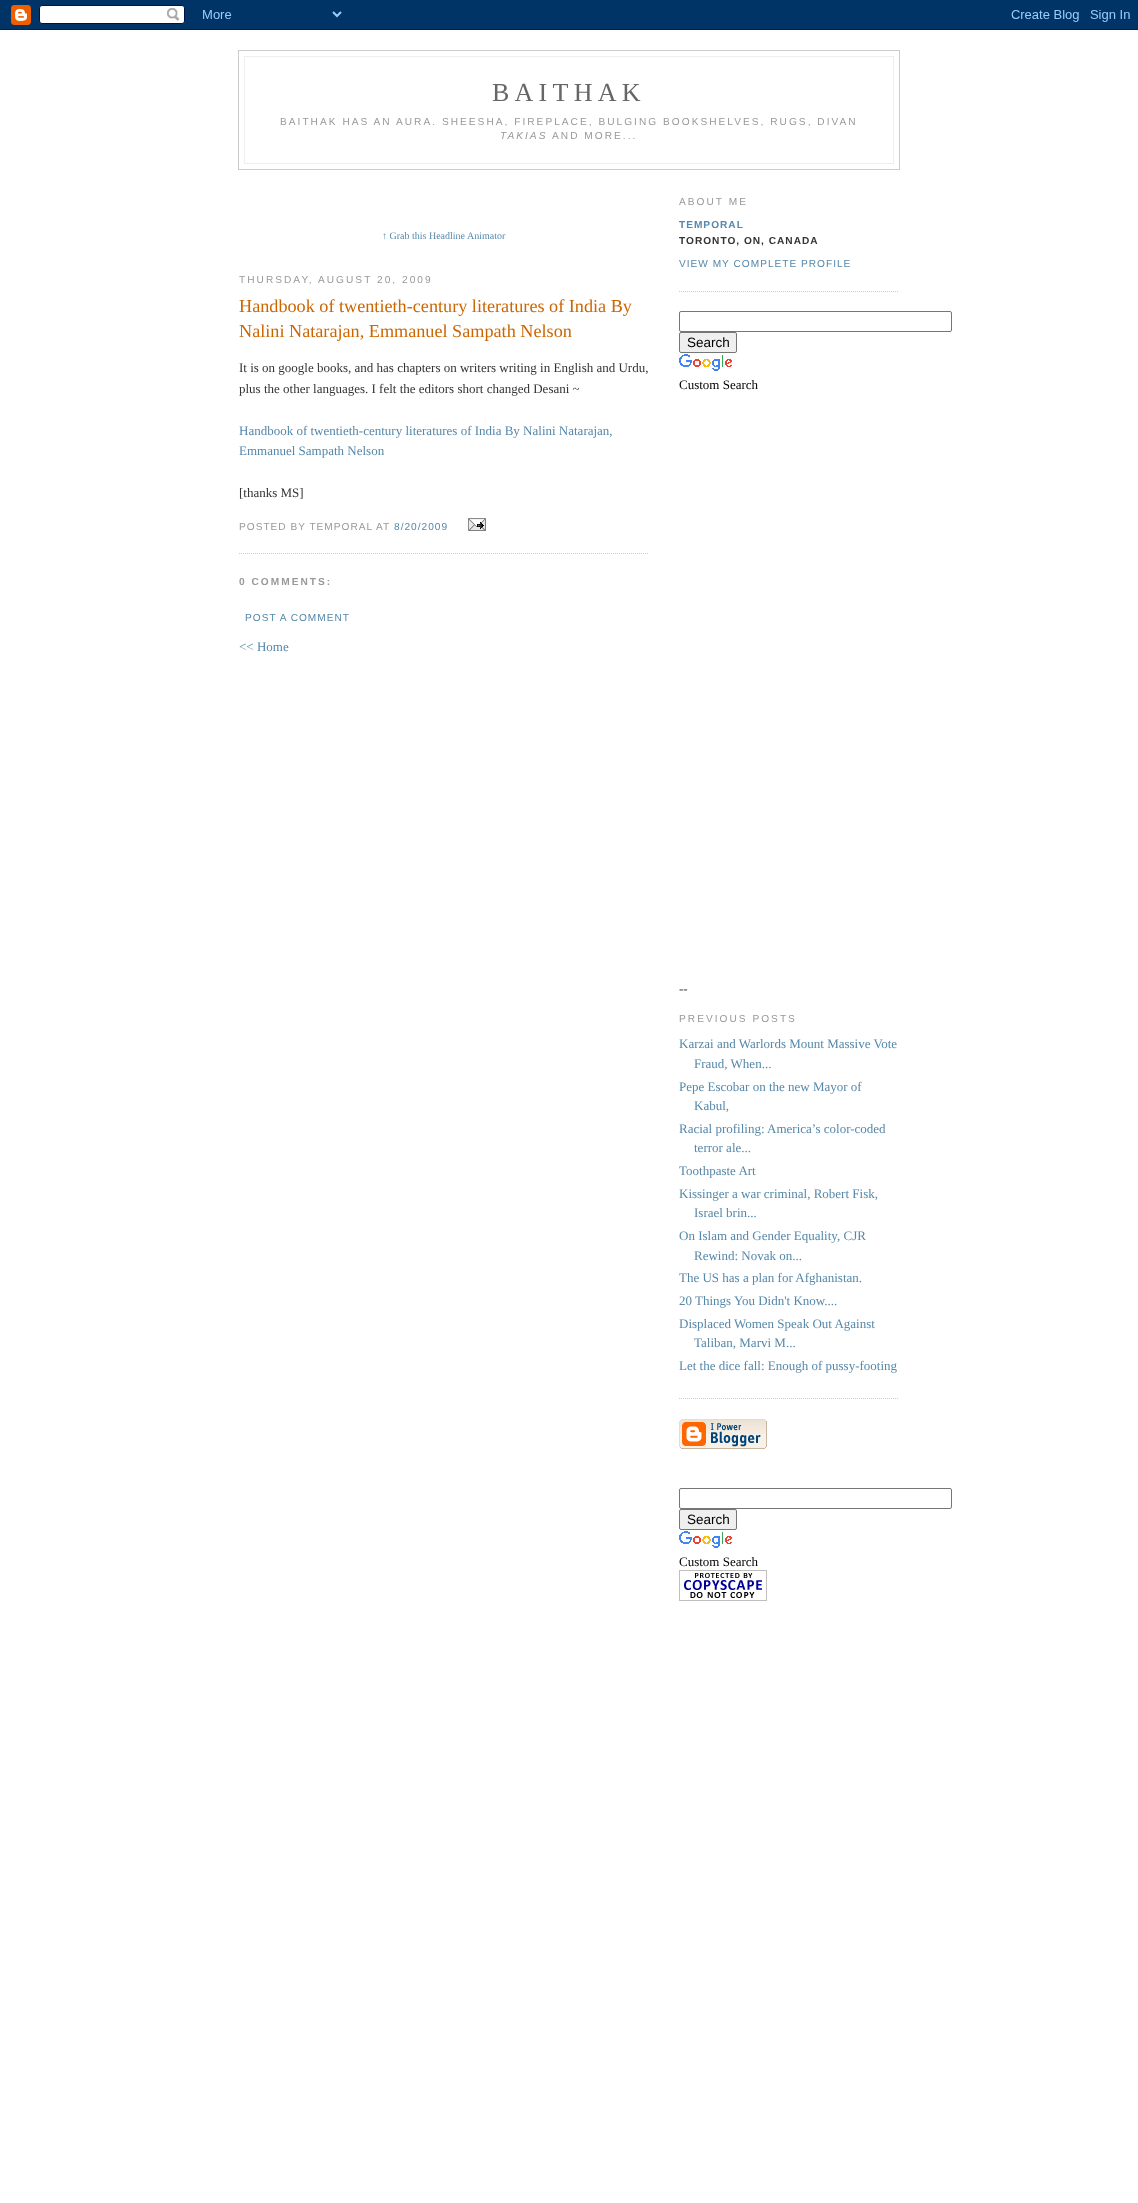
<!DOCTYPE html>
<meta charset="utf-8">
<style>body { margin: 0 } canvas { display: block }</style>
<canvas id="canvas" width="1138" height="2203"></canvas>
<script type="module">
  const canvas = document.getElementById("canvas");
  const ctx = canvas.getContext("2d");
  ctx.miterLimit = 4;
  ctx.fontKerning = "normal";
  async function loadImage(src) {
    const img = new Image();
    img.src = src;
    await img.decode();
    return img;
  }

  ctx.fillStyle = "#ffffff";
  ctx.fillRect(0, 0, 1138, 2203);
  ctx.drawImage(await loadImage("img1.png"), 0, 0, 1138, 30);
  ctx.strokeStyle = "#cccccc";
  ctx.strokeRect(238.5, 50.5, 661, 119);
  ctx.fillStyle = "#eeeeee";
  ctx.fillRect(244, 56, 650, 1);
  ctx.fillRect(893, 56, 1, 108);
  ctx.fillRect(244, 56, 1, 59);
  ctx.letterSpacing = "5.25px";
  ctx.font = "26px Liberation Serif";
  ctx.fillStyle = "#666666";
  ctx.fillText("BAITHAK", 492, 101);
  ctx.fillStyle = "#eeeeee";
  ctx.fillRect(244, 163, 650, 1);
  ctx.fillRect(244, 115, 1, 49);
  ctx.letterSpacing = "2.03px";
  ctx.font = "10.15px Liberation Sans";
  ctx.fillStyle = "#999999";
  ctx.fillText("BAITHAK HAS AN AURA. SHEESHA, FIREPLACE, BULGING BOOKSHELVES, RUGS, DIVAN", 280, 125);
  ctx.font = "italic 10.15px Liberation Sans";
  ctx.fillText("TAKIAS", 500, 139);
  ctx.font = "10.15px Liberation Sans";
  ctx.fillText("AND MORE...", 552, 139);
  ctx.letterSpacing = "0px";
  ctx.font = "10px Liberation Serif";
  ctx.fillStyle = "#5588aa";
  ctx.fillText("↑ Grab this Headline Animator", 382, 239);
  ctx.letterSpacing = "2.03px";
  ctx.font = "10.15px Liberation Sans";
  ctx.fillStyle = "#999999";
  ctx.fillText("THURSDAY, AUGUST 20, 2009", 239, 283);
  ctx.beginPath();
  ctx.moveTo(239, 553.5);
  ctx.lineTo(649, 553.5);
  ctx.setLineDash([1, 1]);
  ctx.stroke();
  ctx.letterSpacing = "0px";
  ctx.font = "18.2px Liberation Serif";
  ctx.fillStyle = "#cc6600";
  ctx.fillText("Handbook of twentieth-century literatures of India By", 239, 312);
  ctx.fillText("Nalini Natarajan, Emmanuel Sampath Nelson", 239, 337);
  ctx.font = "13px Liberation Serif";
  ctx.fillStyle = "#333333";
  ctx.fillText("It is on google books, and has chapters on writers writing in English and Urdu,", 239, 372);
  ctx.fillText("plus the other languages. I felt the editors short changed Desani ~", 239, 393);
  ctx.fillStyle = "#5588aa";
  ctx.fillText("Handbook of twentieth-century literatures of India By Nalini Natarajan,", 239, 435);
  ctx.fillText("Emmanuel Sampath Nelson", 239, 455);
  ctx.fillStyle = "#333333";
  ctx.fillText("[thanks MS]", 239, 497);
  ctx.letterSpacing = "1px";
  ctx.font = "10.15px Liberation Sans";
  ctx.fillStyle = "#999999";
  ctx.fillText("POSTED BY TEMPORAL AT", 239, 530);
  ctx.fillStyle = "#5588aa";
  ctx.fillText("8/20/2009", 394, 530);
  ctx.drawImage(await loadImage("img2.png"), 468, 518, 18, 13);
  ctx.letterSpacing = "2.03px";
  ctx.font = "bold 10.15px Liberation Sans";
  ctx.fillStyle = "#999999";
  ctx.fillText("0 COMMENTS:", 239, 585);
  ctx.letterSpacing = "1px";
  ctx.font = "10.15px Liberation Sans";
  ctx.fillStyle = "#5588aa";
  ctx.fillText("POST A COMMENT", 245, 621);
  ctx.letterSpacing = "0px";
  ctx.font = "13px Liberation Serif";
  ctx.fillText("<< Home", 239, 651);
  ctx.beginPath();
  ctx.moveTo(679, 291.5);
  ctx.lineTo(899, 291.5);
  ctx.stroke();
  ctx.letterSpacing = "2.03px";
  ctx.font = "10.15px Liberation Sans";
  ctx.fillStyle = "#999999";
  ctx.fillText("ABOUT ME", 679, 205);
  ctx.letterSpacing = "1px";
  ctx.font = "bold 10.15px Liberation Sans";
  ctx.fillStyle = "#5588aa";
  ctx.fillText("TEMPORAL", 679, 228);
  ctx.fillStyle = "#333333";
  ctx.fillText("TORONTO, ON, CANADA", 679, 244);
  ctx.font = "10.15px Liberation Sans";
  ctx.fillStyle = "#5588aa";
  ctx.fillText("VIEW MY COMPLETE PROFILE", 679, 267);
  ctx.beginPath();
  ctx.roundRect(679.5, 311.5, 272, 20, 1.5);
  ctx.strokeStyle = "#767676";
  ctx.setLineDash([]);
  ctx.stroke();
  ctx.fillStyle = "#efefef";
  ctx.beginPath();
  ctx.roundRect(679.5, 332.5, 57, 20, 1.5);
  ctx.fill();
  ctx.stroke();
  ctx.letterSpacing = "0px";
  ctx.font = "13.5px Liberation Sans";
  ctx.fillStyle = "#000000";
  ctx.fillText("Search", 687, 347);
  ctx.drawImage(await loadImage("img3.png"), 679, 354, 53, 17);
  ctx.font = "13px Liberation Serif";
  ctx.fillText("Custom Search", 679, 389);
  ctx.fillStyle = "#333333";
  ctx.fillText("--", 679, 993);
  ctx.letterSpacing = "2.03px";
  ctx.font = "10.15px Liberation Sans";
  ctx.fillStyle = "#999999";
  ctx.fillText("PREVIOUS POSTS", 679, 1022);
  ctx.beginPath();
  ctx.moveTo(679, 1398.5);
  ctx.lineTo(899, 1398.5);
  ctx.strokeStyle = "#cccccc";
  ctx.setLineDash([1, 1]);
  ctx.stroke();
  ctx.letterSpacing = "0px";
  ctx.font = "13px Liberation Serif";
  ctx.fillStyle = "#5588aa";
  ctx.fillText("Karzai and Warlords Mount Massive Vote", 679, 1048);
  ctx.fillText("Fraud, When...", 694, 1068);
  ctx.fillText("Pepe Escobar on the new Mayor of", 679, 1091);
  ctx.fillText("Kabul,", 694, 1110);
  ctx.fillText("Racial profiling: America’s color-coded", 679, 1133);
  ctx.fillText("terror ale...", 694, 1152);
  ctx.fillText("Toothpaste Art", 679, 1175);
  ctx.fillText("Kissinger a war criminal, Robert Fisk,", 679, 1198);
  ctx.fillText("Israel brin...", 694, 1217);
  ctx.fillText("On Islam and Gender Equality, CJR", 679, 1240);
  ctx.fillText("Rewind: Novak on...", 694, 1260);
  ctx.fillText("The US has a plan for Afghanistan.", 679, 1282);
  ctx.fillText("20 Things You Didn't Know....", 679, 1305);
  ctx.fillText("Displaced Women Speak Out Against", 679, 1328);
  ctx.fillText("Taliban, Marvi M...", 694, 1347);
  ctx.fillText("Let the dice fall: Enough of pussy-footing", 679, 1370);
  ctx.drawImage(await loadImage("img4.png"), 679, 1419, 88, 30);
  ctx.beginPath();
  ctx.roundRect(679.5, 1488.5, 272, 20, 1.5);
  ctx.strokeStyle = "#767676";
  ctx.setLineDash([]);
  ctx.stroke();
  ctx.fillStyle = "#efefef";
  ctx.beginPath();
  ctx.roundRect(679.5, 1509.5, 57, 20, 1.5);
  ctx.fill();
  ctx.stroke();
  ctx.font = "13.5px Liberation Sans";
  ctx.fillStyle = "#000000";
  ctx.fillText("Search", 687, 1524);
  ctx.drawImage(await loadImage("img3.png"), 679, 1531, 53, 17);
  ctx.font = "13px Liberation Serif";
  ctx.fillText("Custom Search", 679, 1566);
  ctx.drawImage(await loadImage("img5.png"), 679, 1570, 88, 31);
</script>
